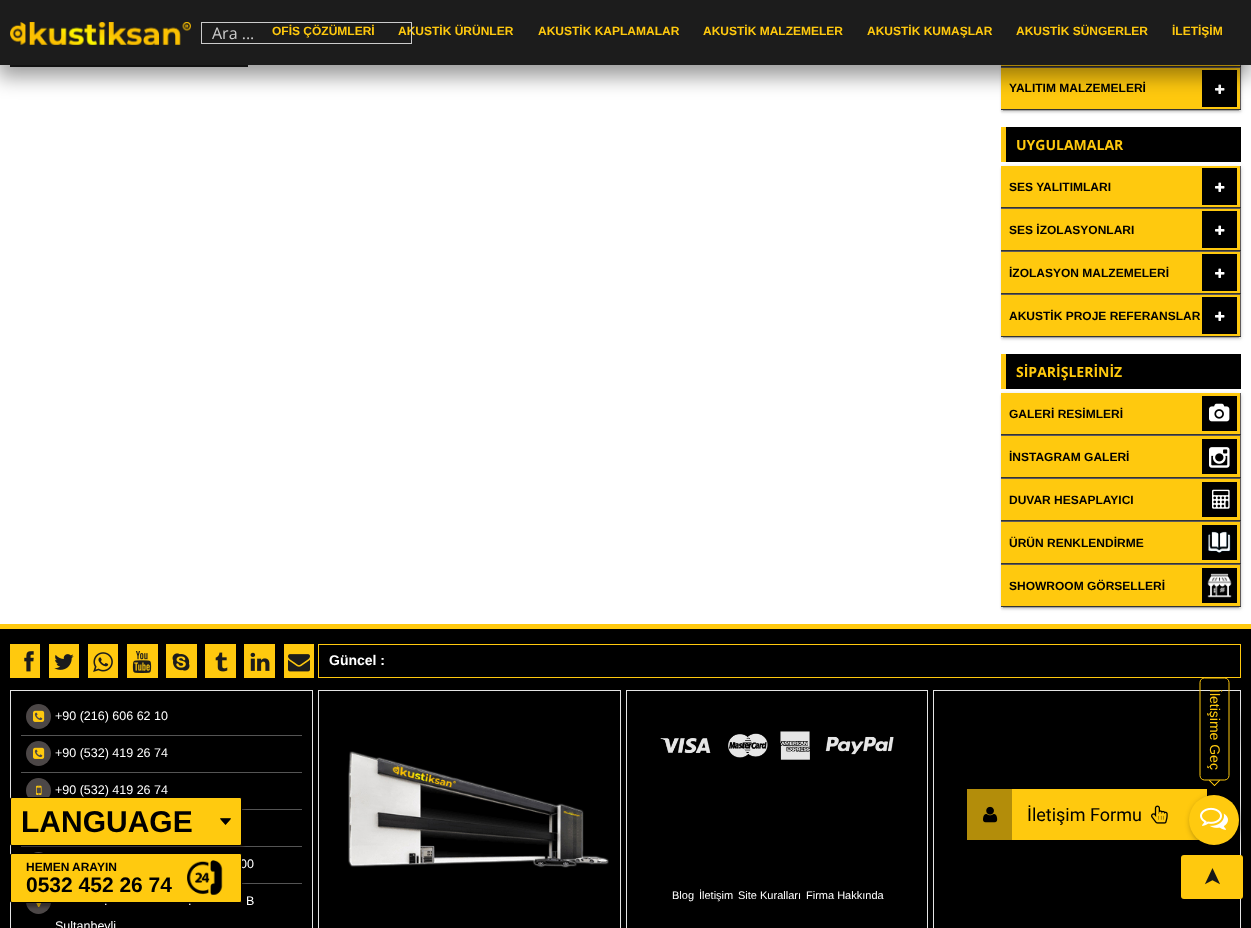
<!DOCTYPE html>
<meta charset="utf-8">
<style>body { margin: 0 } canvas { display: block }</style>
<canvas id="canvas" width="1251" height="928"></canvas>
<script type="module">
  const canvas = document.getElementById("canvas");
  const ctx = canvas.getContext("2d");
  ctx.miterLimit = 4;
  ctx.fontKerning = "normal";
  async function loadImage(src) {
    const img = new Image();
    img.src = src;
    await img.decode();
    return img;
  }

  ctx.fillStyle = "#ffffff";
  ctx.fillRect(0, 0, 1251, 928);
  ctx.fillStyle = "#1c1c1c";
  ctx.fillRect(10, 65, 238, 2);
  ctx.save();
  ctx.beginPath();
  ctx.rect(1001, 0, 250, 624);
  ctx.clip();
  ctx.fillStyle = "rgba(0, 0, 0, 0.12)";
  ctx.filter = "blur(2.5px)";
  ctx.beginPath();
  ctx.rect(1001, -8, 240, 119);
  ctx.fill();
  ctx.filter = "none";
  ctx.restore();
  ctx.fillStyle = "rgba(0, 0, 0, 0.2)";
  ctx.filter = "blur(0.5px)";
  ctx.beginPath();
  ctx.rect(1003, -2, 236, 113);
  ctx.fill();
  ctx.filter = "none";
  ctx.fillStyle = "rgba(0, 0, 0, 0.14)";
  ctx.filter = "blur(1px)";
  ctx.beginPath();
  ctx.rect(1001, -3, 240, 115);
  ctx.fill();
  ctx.filter = "none";
  ctx.fillStyle = "#5f5a5a";
  ctx.fillRect(1001, 65, 240, 44);
  ctx.fillStyle = "#333333";
  ctx.fillRect(1001, 66, 240, 1);
  ctx.fillStyle = "#ffc90e";
  ctx.fillRect(1001, 65, 239, 1);
  ctx.fillRect(1001, 68, 239, 41);
  ctx.fillStyle = "#000000";
  ctx.fillRect(1202, 70, 35, 37);
  ctx.drawImage(await loadImage("img2.png"), 1215, 84, 10, 10);
  ctx.fillStyle = "rgba(0, 0, 0, 0.39)";
  ctx.filter = "blur(10px)";
  ctx.beginPath();
  ctx.rect(-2, 10, 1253, 67);
  ctx.fill();
  ctx.filter = "none";
  ctx.fillStyle = "#1c1c1c";
  ctx.fillRect(0, 0, 1251, 65);
  ctx.drawImage(await loadImage("img1.png"), 10, 22, 181, 23);
  ctx.font = "bold 12px Liberation Sans";
  ctx.fillStyle = "#ffc90e";
  ctx.fillText("AKUSTİK ÜRÜNLER", 398, 35);
  ctx.strokeStyle = "#cccccc";
  ctx.strokeRect(201.5, 22.5, 210, 21);
  ctx.font = "16px Open Sans";
  ctx.fillStyle = "#cccccc";
  ctx.fillText("Ara ...", 212, 39);
  ctx.font = "bold 12px Liberation Sans";
  ctx.fillStyle = "#ffc90e";
  ctx.fillText("OFİS ÇÖZÜMLERİ", 272, 35);
  ctx.fillText("AKUSTİK KAPLAMALAR", 538, 35);
  ctx.fillText("AKUSTİK MALZEMELER", 703, 35);
  ctx.fillText("AKUSTİK KUMAŞLAR", 867, 35);
  ctx.fillText("AKUSTİK SÜNGERLER", 1016, 35);
  ctx.fillText("İLETİŞİM", 1172, 35);
  ctx.fillStyle = "#333333";
  ctx.fillRect(1001, 109, 240, 1);
  ctx.fillStyle = "#000000";
  ctx.fillText("YALITIM MALZEMELERİ", 1009, 92);
  ctx.fillRect(1006, 127, 235, 35);
  ctx.fillStyle = "#ffc90e";
  ctx.fillRect(1001, 127, 5, 35);
  ctx.font = "bold 14px Open Sans";
  ctx.fillText("UYGULAMALAR", 1016, 150);
  ctx.save();
  ctx.beginPath();
  ctx.rect(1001, 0, 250, 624);
  ctx.clip();
  ctx.fillStyle = "rgba(0, 0, 0, 0.12)";
  ctx.filter = "blur(2.5px)";
  ctx.beginPath();
  ctx.rect(1001, 167, 240, 171);
  ctx.fill();
  ctx.filter = "none";
  ctx.restore();
  ctx.fillStyle = "rgba(0, 0, 0, 0.2)";
  ctx.filter = "blur(0.5px)";
  ctx.beginPath();
  ctx.rect(1003, 171, 236, 167);
  ctx.fill();
  ctx.filter = "none";
  ctx.fillStyle = "rgba(0, 0, 0, 0.14)";
  ctx.filter = "blur(1px)";
  ctx.beginPath();
  ctx.rect(1001, 168, 240, 171);
  ctx.fill();
  ctx.filter = "none";
  ctx.fillStyle = "#5f5a5a";
  ctx.fillRect(1001, 166, 240, 170);
  ctx.fillStyle = "#333333";
  ctx.fillRect(1001, 207, 240, 1);
  ctx.fillStyle = "#ffc90e";
  ctx.fillRect(1001, 166, 239, 41);
  ctx.font = "bold 12px Liberation Sans";
  ctx.fillStyle = "#000000";
  ctx.fillText("SES YALITIMLARI", 1009, 191);
  ctx.fillRect(1202, 168, 35, 37);
  ctx.drawImage(await loadImage("img2.png"), 1215, 182, 10, 10);
  ctx.fillStyle = "#333333";
  ctx.fillRect(1001, 250, 240, 1);
  ctx.fillStyle = "#ffc90e";
  ctx.fillRect(1001, 209, 239, 41);
  ctx.fillStyle = "#000000";
  ctx.fillText("SES İZOLASYONLARI", 1009, 234);
  ctx.fillRect(1202, 211, 35, 37);
  ctx.drawImage(await loadImage("img2.png"), 1215, 225, 10, 10);
  ctx.fillStyle = "#333333";
  ctx.fillRect(1001, 293, 240, 1);
  ctx.fillStyle = "#ffc90e";
  ctx.fillRect(1001, 252, 239, 41);
  ctx.fillStyle = "#000000";
  ctx.fillText("İZOLASYON MALZEMELERİ", 1009, 277);
  ctx.fillRect(1202, 254, 35, 37);
  ctx.drawImage(await loadImage("img2.png"), 1215, 268, 10, 10);
  ctx.fillStyle = "#333333";
  ctx.fillRect(1001, 336, 240, 1);
  ctx.fillStyle = "#ffc90e";
  ctx.fillRect(1001, 295, 239, 41);
  ctx.fillStyle = "#000000";
  ctx.fillText("AKUSTİK PROJE REFERANSLAR", 1009, 320);
  ctx.fillRect(1202, 297, 35, 37);
  ctx.drawImage(await loadImage("img2.png"), 1215, 311, 10, 10);
  ctx.fillRect(1006, 354, 235, 35);
  ctx.fillStyle = "#ffc90e";
  ctx.fillRect(1001, 354, 5, 35);
  ctx.font = "bold 14px Open Sans";
  ctx.fillText("SİPARİŞLERİNİZ", 1016, 377);
  ctx.save();
  ctx.beginPath();
  ctx.rect(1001, 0, 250, 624);
  ctx.clip();
  ctx.fillStyle = "rgba(0, 0, 0, 0.12)";
  ctx.filter = "blur(2.5px)";
  ctx.beginPath();
  ctx.rect(1001, 394, 240, 214);
  ctx.fill();
  ctx.filter = "none";
  ctx.restore();
  ctx.fillStyle = "rgba(0, 0, 0, 0.2)";
  ctx.filter = "blur(0.5px)";
  ctx.beginPath();
  ctx.rect(1003, 398, 236, 210);
  ctx.fill();
  ctx.filter = "none";
  ctx.fillStyle = "rgba(0, 0, 0, 0.14)";
  ctx.filter = "blur(1px)";
  ctx.beginPath();
  ctx.rect(1001, 395, 240, 214);
  ctx.fill();
  ctx.filter = "none";
  ctx.fillStyle = "#5f5a5a";
  ctx.fillRect(1001, 393, 240, 213);
  ctx.fillStyle = "#333333";
  ctx.fillRect(1001, 434, 240, 1);
  ctx.fillStyle = "#ffc90e";
  ctx.fillRect(1001, 393, 239, 41);
  ctx.font = "bold 12px Liberation Sans";
  ctx.fillStyle = "#000000";
  ctx.fillText("GALERİ RESİMLERİ", 1009, 418);
  ctx.fillRect(1202, 396, 35, 35);
  ctx.drawImage(await loadImage("img3.png"), 1209, 403, 21, 19);
  ctx.fillStyle = "#333333";
  ctx.fillRect(1001, 477, 240, 1);
  ctx.fillStyle = "#ffc90e";
  ctx.fillRect(1001, 436, 239, 41);
  ctx.fillStyle = "#000000";
  ctx.fillText("İNSTAGRAM GALERİ", 1009, 461);
  ctx.fillRect(1202, 439, 35, 35);
  ctx.drawImage(await loadImage("img4.png"), 1209, 447, 21, 21);
  ctx.fillStyle = "#333333";
  ctx.fillRect(1001, 520, 240, 1);
  ctx.fillStyle = "#ffc90e";
  ctx.fillRect(1001, 479, 239, 41);
  ctx.fillStyle = "#000000";
  ctx.fillText("DUVAR HESAPLAYICI", 1009, 504);
  ctx.fillRect(1202, 482, 35, 35);
  ctx.drawImage(await loadImage("img5.png"), 1212, 489, 18, 20);
  ctx.fillStyle = "#333333";
  ctx.fillRect(1001, 563, 240, 1);
  ctx.fillStyle = "#ffc90e";
  ctx.fillRect(1001, 522, 239, 41);
  ctx.fillStyle = "#000000";
  ctx.fillText("ÜRÜN RENKLENDİRME", 1009, 547);
  ctx.drawImage(await loadImage("img6.png"), 1202, 525, 35, 35);
  ctx.fillStyle = "#333333";
  ctx.fillRect(1001, 606, 240, 1);
  ctx.fillStyle = "#ffc90e";
  ctx.fillRect(1001, 565, 239, 41);
  ctx.fillStyle = "#000000";
  ctx.fillText("SHOWROOM GÖRSELLERİ", 1009, 590);
  ctx.drawImage(await loadImage("img7.png"), 1202, 568, 35, 35);
  ctx.fillStyle = "#ffc90e";
  ctx.fillRect(0, 624, 1251, 5);
  ctx.fillStyle = "#000000";
  ctx.fillRect(0, 629, 1251, 299);
  ctx.fillStyle = "#ffc90e";
  ctx.fillRect(10, 644, 30, 34);
  ctx.drawImage(await loadImage("img8.png"), 24, 651, 10, 21);
  ctx.fillRect(49, 644, 30, 34);
  ctx.drawImage(await loadImage("img9.png"), 54, 654, 20, 16);
  ctx.fillRect(88, 644, 30, 34);
  ctx.drawImage(await loadImage("img10.png"), 93, 652, 20, 20);
  ctx.fillRect(127, 644, 31, 34);
  ctx.drawImage(await loadImage("img11.png"), 132, 651, 20, 22);
  ctx.fillRect(166, 644, 31, 34);
  ctx.drawImage(await loadImage("img12.png"), 172, 653, 18, 18);
  ctx.fillRect(205, 644, 31, 34);
  ctx.drawImage(await loadImage("img13.png"), 215, 652, 13, 20);
  ctx.fillRect(244, 644, 31, 34);
  ctx.drawImage(await loadImage("img14.png"), 250, 652, 20, 19);
  ctx.fillRect(284, 644, 30, 34);
  ctx.drawImage(await loadImage("img15.png"), 288, 654, 22, 18);
  ctx.strokeStyle = "#ffc90e";
  ctx.strokeRect(318.5, 644.5, 922, 33);
  ctx.font = "bold 14px Liberation Sans";
  ctx.fillStyle = "#ffffff";
  ctx.fillText("Güncel :", 329, 665);
  ctx.strokeStyle = "#e5e5e5";
  ctx.strokeRect(10.5, 690.5, 302, 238);
  ctx.fillStyle = "#545454";
  ctx.fillRect(242, 883, 60, 1);
  ctx.fillStyle = "#4c4747";
  ctx.beginPath();
  ctx.arc(38.5, 864.5, 12.5, 0, Math.PI * 2);
  ctx.fill();
  ctx.beginPath();
  ctx.arc(38.5, 901.5, 12.5, 0, Math.PI * 2);
  ctx.fill();
  ctx.drawImage(await loadImage("img21.png"), 36, 903, 6, 4);
  ctx.fillStyle = "rgba(12, 0, 0, 0.35)";
  ctx.filter = "blur(1.5px)";
  ctx.beginPath();
  ctx.roundRect(12, 857, 232, 50, 2);
  ctx.fill();
  ctx.filter = "none";
  ctx.font = "12.5px Liberation Sans";
  ctx.fillStyle = "#ffffff";
  ctx.fillText("00", 240, 868);
  ctx.fillStyle = "#ffca0f";
  ctx.beginPath();
  ctx.roundRect(10.5, 853.5, 231, 49, 1.5);
  ctx.fill();
  ctx.strokeStyle = "#000000";
  ctx.stroke();
  ctx.fillStyle = "#545454";
  ctx.fillRect(242, 809, 60, 1);
  ctx.fillStyle = "#4c4747";
  ctx.beginPath();
  ctx.arc(38.5, 790.5, 12.5, 0, Math.PI * 2);
  ctx.fill();
  ctx.fillStyle = "#545454";
  ctx.fillRect(21, 846, 281, 1);
  ctx.fillStyle = "rgba(12, 0, 0, 0.35)";
  ctx.filter = "blur(1.5px)";
  ctx.beginPath();
  ctx.roundRect(12, 801, 232, 49, 2);
  ctx.fill();
  ctx.filter = "none";
  ctx.fillStyle = "#ffca0f";
  ctx.beginPath();
  ctx.roundRect(10.5, 797.5, 231, 48, 1.5);
  ctx.fill();
  ctx.stroke();
  ctx.drawImage(await loadImage("img16.png"), 220, 818, 11, 7);
  ctx.font = "bold 30px Liberation Sans";
  ctx.fillStyle = "#000000";
  ctx.fillText("LANGUAGE", 21, 832);
  ctx.font = "bold 12px Liberation Sans";
  ctx.fillText("HEMEN", 26, 871);
  ctx.fillText("ARAYIN", 72, 871);
  ctx.drawImage(await loadImage("img17.png"), 187, 860, 36, 35);
  ctx.font = "bold 21px Liberation Sans";
  ctx.fillText("0532 452 26 74", 26, 892);
  ctx.strokeStyle = "#e5e5e5";
  ctx.strokeRect(933.5, 690.5, 307, 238);
  ctx.save();
  ctx.beginPath();
  ctx.rect(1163, 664, 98, 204);
  ctx.clip();
  ctx.beginPath();
  ctx.moveTo(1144, 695);
  ctx.lineTo(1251, 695);
  ctx.lineTo(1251, 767);
  ctx.lineTo(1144, 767);
  ctx.closePath();
  ctx.moveTo(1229.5, 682.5);
  ctx.lineTo(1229.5, 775.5);
  ctx.bezierCurveTo(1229.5, 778, 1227.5, 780.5, 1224.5, 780.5);
  ctx.lineTo(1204.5, 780.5);
  ctx.bezierCurveTo(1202, 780.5, 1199.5, 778, 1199.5, 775.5);
  ctx.lineTo(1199.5, 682.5);
  ctx.bezierCurveTo(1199.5, 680, 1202, 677.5, 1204.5, 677.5);
  ctx.lineTo(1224.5, 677.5);
  ctx.bezierCurveTo(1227.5, 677.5, 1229.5, 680, 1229.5, 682.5);
  ctx.closePath();
  ctx.clip("evenodd");
  ctx.fillStyle = "rgba(0, 0, 0, 0.1)";
  ctx.filter = "blur(6.5px)";
  ctx.beginPath();
  ctx.roundRect(1165, 716, 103, 30, 5);
  ctx.fill();
  ctx.filter = "none";
  ctx.restore();
  ctx.beginPath();
  ctx.moveTo(1229, 682.5);
  ctx.lineTo(1229, 775.5);
  ctx.bezierCurveTo(1229, 778, 1227, 780, 1224.5, 780);
  ctx.lineTo(1204.5, 780);
  ctx.bezierCurveTo(1202, 780, 1200, 778, 1200, 775.5);
  ctx.lineTo(1200, 682.5);
  ctx.bezierCurveTo(1200, 680, 1202, 678, 1204.5, 678);
  ctx.lineTo(1224.5, 678);
  ctx.bezierCurveTo(1227, 678, 1229, 680, 1229, 682.5);
  ctx.closePath();
  ctx.strokeStyle = "#ffc90e";
  ctx.stroke();
  ctx.font = "14px Liberation Sans";
  ctx.fillStyle = "#ffc90e";
  ctx.save();
  ctx.translate(1210, 689);
  ctx.rotate(90 * Math.PI / 180);
  ctx.fillText("İletişime Geç", 0, 0);
  ctx.restore();
  ctx.beginPath();
  ctx.moveTo(1219.5, 780);
  ctx.lineTo(1220, 780.5);
  ctx.lineTo(1214.5, 786);
  ctx.lineTo(1214, 785.5);
  ctx.closePath();
  ctx.fill();
  ctx.beginPath();
  ctx.moveTo(1209.5, 780);
  ctx.lineTo(1215, 785.5);
  ctx.lineTo(1214.5, 786);
  ctx.lineTo(1209, 780.5);
  ctx.closePath();
  ctx.fill();
  ctx.beginPath();
  ctx.moveTo(1219.5, 780);
  ctx.lineTo(1220, 780.5);
  ctx.lineTo(1214.5, 786);
  ctx.lineTo(1214, 785.5);
  ctx.closePath();
  ctx.fill();
  ctx.beginPath();
  ctx.moveTo(1209.5, 780);
  ctx.lineTo(1215, 785.5);
  ctx.lineTo(1214.5, 786);
  ctx.lineTo(1209, 780.5);
  ctx.closePath();
  ctx.fill();
  ctx.fillRect(1012, 789, 195, 51);
  ctx.beginPath();
  ctx.moveTo(1181, 896);
  ctx.lineTo(1181, 858);
  ctx.bezierCurveTo(1181, 856, 1182, 855, 1184, 855);
  ctx.lineTo(1240, 855);
  ctx.bezierCurveTo(1242, 855, 1243, 856, 1243, 858);
  ctx.lineTo(1243, 896);
  ctx.bezierCurveTo(1243, 898, 1242, 899, 1240, 899);
  ctx.lineTo(1184, 899);
  ctx.bezierCurveTo(1182, 899, 1181, 898, 1181, 896);
  ctx.closePath();
  ctx.fill();
  ctx.fillStyle = "rgba(0, 0, 0, 0.4)";
  ctx.filter = "blur(3px)";
  ctx.beginPath();
  ctx.roundRect(1191, 797, 50, 50, 25);
  ctx.fill();
  ctx.filter = "none";
  ctx.fillStyle = "#ffca0f";
  ctx.beginPath();
  ctx.arc(1214, 820, 25, 0, Math.PI * 2);
  ctx.fill();
  ctx.drawImage(await loadImage("img18.png"), 1200, 807, 28, 23);
  ctx.fillStyle = "#545454";
  ctx.fillRect(21, 735, 281, 1);
  ctx.fillStyle = "#4c4747";
  ctx.beginPath();
  ctx.arc(38.5, 716.5, 12.5, 0, Math.PI * 2);
  ctx.fill();
  ctx.drawImage(await loadImage("img19.png"), 33, 710, 12, 12);
  ctx.font = "12.5px Liberation Sans";
  ctx.fillStyle = "#ffffff";
  ctx.fillText("+90 (216) 606 62 10", 55, 720);
  ctx.fillStyle = "#545454";
  ctx.fillRect(21, 772, 281, 1);
  ctx.fillStyle = "#4c4747";
  ctx.beginPath();
  ctx.arc(38.5, 753.5, 12.5, 0, Math.PI * 2);
  ctx.fill();
  ctx.drawImage(await loadImage("img19.png"), 33, 747, 12, 12);
  ctx.fillStyle = "#ffffff";
  ctx.fillText("+90 (532) 419 26 74", 55, 757);
  ctx.drawImage(await loadImage("img20.png"), 36, 785, 6, 10);
  ctx.fillText("+90 (532) 419 26 74", 55, 794);
  ctx.fillText(".", 104, 905);
  ctx.fillText(".", 188, 905);
  ctx.fillText("B", 246, 905);
  ctx.fillText("Sultanbeyli", 55, 930);
  ctx.strokeStyle = "#e5e5e5";
  ctx.strokeRect(318.5, 690.5, 302, 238);
  ctx.drawImage(await loadImage("img22.png"), 348, 751, 261, 117);
  ctx.fillStyle = "#b38d0a";
  ctx.fillRect(967, 789, 45, 51);
  ctx.drawImage(await loadImage("img23.png"), 983, 806, 15, 17);
  ctx.font = "18px Roboto";
  ctx.fillStyle = "#000000";
  ctx.fillText("İletişim Formu", 1027, 821);
  ctx.drawImage(await loadImage("img24.png"), 1151, 805, 17, 19);
  ctx.strokeRect(626.5, 690.5, 301, 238);
  ctx.drawImage(await loadImage("img25.png"), 660, 731, 234, 29);
  ctx.font = "11px Liberation Sans";
  ctx.fillStyle = "#ffffff";
  ctx.fillText("Blog", 672, 899);
  ctx.fillText("İletişim", 699, 899);
  ctx.fillText("Site Kuralları", 738, 899);
  ctx.fillText("Firma Hakkında", 806, 899);
  ctx.font = "24px DejaVu Sans";
  ctx.fillStyle = "#171717";
  ctx.save();
  ctx.translate(1220, 887);
  ctx.rotate(-90 * Math.PI / 180);
  ctx.fillText("➤", 0, 0);
  ctx.restore();
</script>
